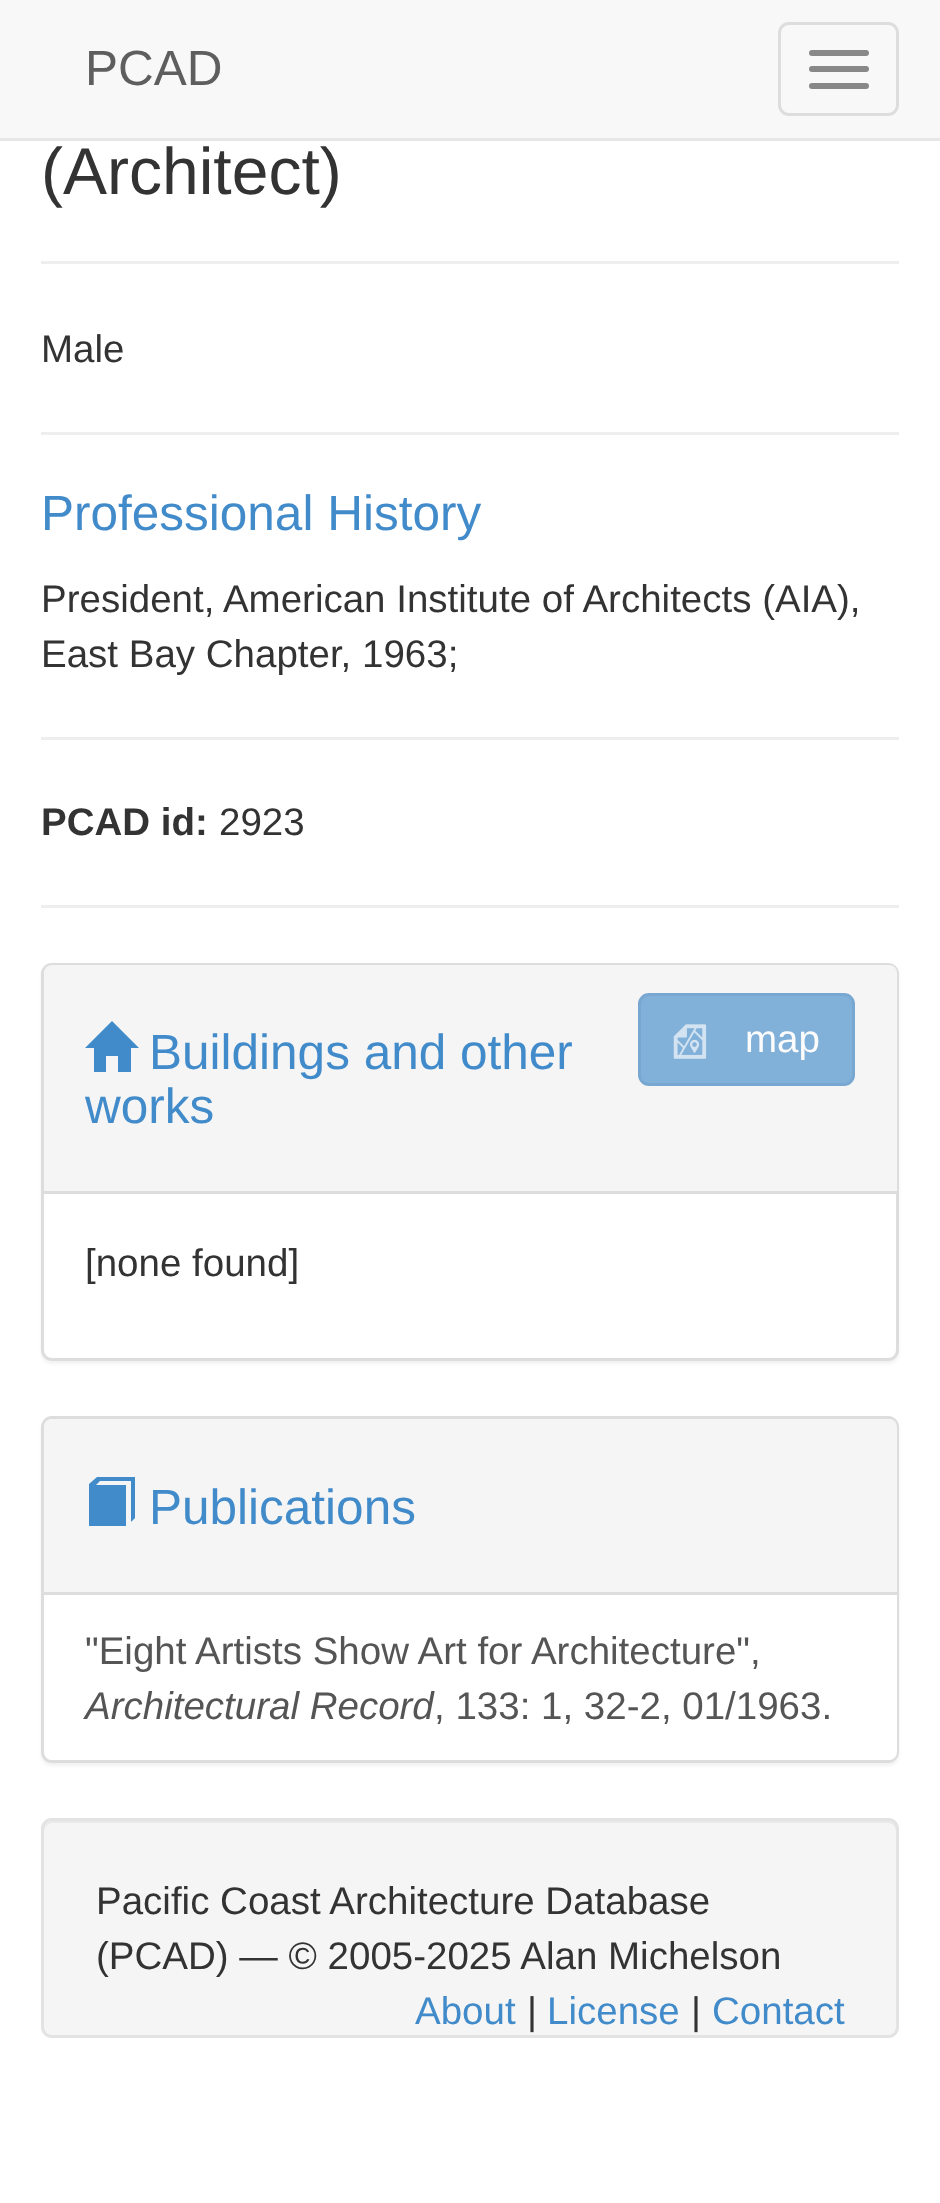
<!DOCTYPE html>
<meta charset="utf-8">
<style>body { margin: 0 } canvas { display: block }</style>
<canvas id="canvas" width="940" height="2203"></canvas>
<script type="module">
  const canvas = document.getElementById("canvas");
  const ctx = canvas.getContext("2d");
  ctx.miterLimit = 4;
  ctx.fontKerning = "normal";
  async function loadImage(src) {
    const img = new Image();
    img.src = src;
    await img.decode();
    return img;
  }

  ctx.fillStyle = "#ffffff";
  ctx.fillRect(0, 0, 940, 2203);
  ctx.fillStyle = "#f8f8f8";
  ctx.fillRect(0, 0, 940, 138);
  ctx.fillStyle = "#e7e7e7";
  ctx.fillRect(0, 138, 940, 3);
  ctx.font = "49.5px Liberation Sans";
  ctx.fillStyle = "#5e5e5e";
  ctx.fillText("PCAD", 85, 85);
  ctx.beginPath();
  ctx.roundRect(779.5, 23.5, 118, 91, 9.5);
  ctx.strokeStyle = "#dddddd";
  ctx.lineWidth = 3;
  ctx.stroke();
  ctx.fillStyle = "#888888";
  ctx.beginPath();
  ctx.roundRect(809, 50, 60, 6, 3);
  ctx.fill();
  ctx.beginPath();
  ctx.roundRect(809, 66, 60, 6, 3);
  ctx.fill();
  ctx.beginPath();
  ctx.roundRect(809, 83, 60, 6, 3);
  ctx.fill();
  ctx.fillStyle = "#eeeeee";
  ctx.fillRect(41, 261, 858, 3);
  ctx.font = "66px Liberation Sans";
  ctx.fillStyle = "#333333";
  ctx.fillText("(Architect)", 41, 194);
  ctx.font = "38.5px Liberation Sans";
  ctx.fillText("Male", 41, 362);
  ctx.fillStyle = "#eeeeee";
  ctx.fillRect(41, 432, 858, 3);
  ctx.font = "49.5px Liberation Sans";
  ctx.fillStyle = "#428bca";
  ctx.fillText("Professional History", 41, 530);
  ctx.font = "38.5px Liberation Sans";
  ctx.fillStyle = "#333333";
  ctx.fillText("President, American Institute of Architects (AIA),", 41, 612);
  ctx.fillText("East Bay Chapter, 1963;", 41, 667);
  ctx.fillStyle = "#eeeeee";
  ctx.fillRect(41, 737, 858, 3);
  ctx.font = "bold 38.5px Liberation Sans";
  ctx.fillStyle = "#333333";
  ctx.fillText("PCAD id:", 41, 835);
  ctx.font = "38.5px Liberation Sans";
  ctx.fillText("2923", 219, 835);
  ctx.fillStyle = "#eeeeee";
  ctx.fillRect(41, 905, 858, 3);
  ctx.fillStyle = "rgba(0, 0, 0, 0.05)";
  ctx.filter = "blur(1.5px)";
  ctx.beginPath();
  ctx.roundRect(41, 965, 858, 399, 11);
  ctx.fill();
  ctx.filter = "none";
  ctx.fillStyle = "#ffffff";
  ctx.beginPath();
  ctx.roundRect(42.5, 964.5, 855, 395, 9.5);
  ctx.fill();
  ctx.stroke();
  ctx.fillStyle = "#f5f5f5";
  ctx.beginPath();
  ctx.roundRect(44, 965, 853, 229, [8, 8, 0, 0]);
  ctx.fill();
  ctx.fillStyle = "#dddddd";
  ctx.fillRect(44, 1191, 853, 3);
  ctx.fillStyle = "#428bca";
  ctx.beginPath();
  ctx.moveTo(85, 1048);
  ctx.lineTo(112, 1021);
  ctx.lineTo(139, 1048);
  ctx.lineTo(131, 1048);
  ctx.lineTo(131, 1072);
  ctx.lineTo(118, 1072);
  ctx.lineTo(118, 1056);
  ctx.lineTo(106, 1056);
  ctx.lineTo(106, 1072);
  ctx.lineTo(94, 1072);
  ctx.lineTo(94, 1048);
  ctx.closePath();
  ctx.fill();
  ctx.font = "49.5px Liberation Sans";
  ctx.fillText("Buildings and other", 149, 1069);
  ctx.fillText("works", 85, 1123);
  ctx.fillStyle = "#81b0d9";
  ctx.beginPath();
  ctx.roundRect(639.5, 994.5, 214, 90, 9.5);
  ctx.fill();
  ctx.strokeStyle = "#78a8d1";
  ctx.stroke();
  ctx.drawImage(await loadImage("img1.png"), 673, 1024, 34, 35);
  ctx.font = "38.5px Liberation Sans";
  ctx.fillStyle = "#fcfcfc";
  ctx.fillText("map", 745, 1052);
  ctx.fillStyle = "#333333";
  ctx.fillText("[none found]", 85, 1276);
  ctx.fillStyle = "rgba(0, 0, 0, 0.05)";
  ctx.filter = "blur(1.5px)";
  ctx.beginPath();
  ctx.roundRect(41, 1419, 858, 347, 11);
  ctx.fill();
  ctx.filter = "none";
  ctx.beginPath();
  ctx.roundRect(42.5, 1417.5, 855, 344, 9.5);
  ctx.strokeStyle = "#dddddd";
  ctx.stroke();
  ctx.fillStyle = "#f5f5f5";
  ctx.beginPath();
  ctx.roundRect(44, 1419, 853, 176, [8, 8, 0, 0]);
  ctx.fill();
  ctx.fillStyle = "#dddddd";
  ctx.fillRect(44, 1592, 853, 3);
  ctx.fillStyle = "#428bca";
  ctx.beginPath();
  ctx.moveTo(89, 1526);
  ctx.lineTo(89, 1484);
  ctx.lineTo(97, 1477);
  ctx.lineTo(135, 1477);
  ctx.lineTo(135, 1518);
  ctx.lineTo(131, 1522);
  ctx.lineTo(131, 1481);
  ctx.lineTo(100, 1481);
  ctx.lineTo(96, 1485);
  ctx.lineTo(126, 1485);
  ctx.lineTo(126, 1526);
  ctx.closePath();
  ctx.fill();
  ctx.font = "49.5px Liberation Sans";
  ctx.fillText("Publications", 149, 1524);
  ctx.fillStyle = "#ffffff";
  ctx.beginPath();
  ctx.roundRect(44, 1595, 853, 165, [0, 0, 8, 8]);
  ctx.fill();
  ctx.font = "38.5px Liberation Sans";
  ctx.fillStyle = "#555555";
  ctx.fillText("\"Eight Artists Show Art for Architecture\",", 85, 1664);
  ctx.font = "italic 38.5px Liberation Sans";
  ctx.fillText("Architectural Record", 85, 1719);
  ctx.font = "38.5px Liberation Sans";
  ctx.fillText(", 133: 1, 32-2, 01/1963.", 434, 1719);
  ctx.fillStyle = "#f5f5f5";
  ctx.beginPath();
  ctx.roundRect(41, 1818, 858, 220, 11);
  ctx.fill();
  ctx.fillStyle = "#e9e9e9";
  ctx.beginPath();
  ctx.moveTo(52, 1823);
  ctx.lineTo(888, 1823);
  ctx.bezierCurveTo(893, 1823, 896, 1827, 896, 1832);
  ctx.lineTo(896, 2031);
  ctx.bezierCurveTo(897, 2030, 897, 2028, 897, 2027);
  ctx.lineTo(897, 1829);
  ctx.bezierCurveTo(897, 1825, 893, 1821, 889, 1821);
  ctx.lineTo(52, 1821);
  ctx.bezierCurveTo(48, 1821, 44, 1825, 44, 1829);
  ctx.lineTo(44, 1832);
  ctx.bezierCurveTo(44, 1827, 48, 1823, 52, 1823);
  ctx.closePath();
  ctx.fill();
  ctx.beginPath();
  ctx.roundRect(42.5, 1819.5, 855, 217, 9.5);
  ctx.strokeStyle = "#e3e3e3";
  ctx.stroke();
  ctx.fillStyle = "#333333";
  ctx.fillText("Pacific Coast Architecture Database", 96, 1914);
  ctx.fillText("(PCAD) — © 2005-2025 Alan Michelson", 96, 1969);
  ctx.fillStyle = "#428bca";
  ctx.fillText("About", 415, 2024);
  ctx.fillStyle = "#333333";
  ctx.fillText("|", 527, 2024);
  ctx.fillStyle = "#428bca";
  ctx.fillText("License", 547, 2024);
  ctx.fillStyle = "#333333";
  ctx.fillText("|", 691, 2024);
  ctx.fillStyle = "#428bca";
  ctx.fillText("Contact", 712, 2024);
</script>
